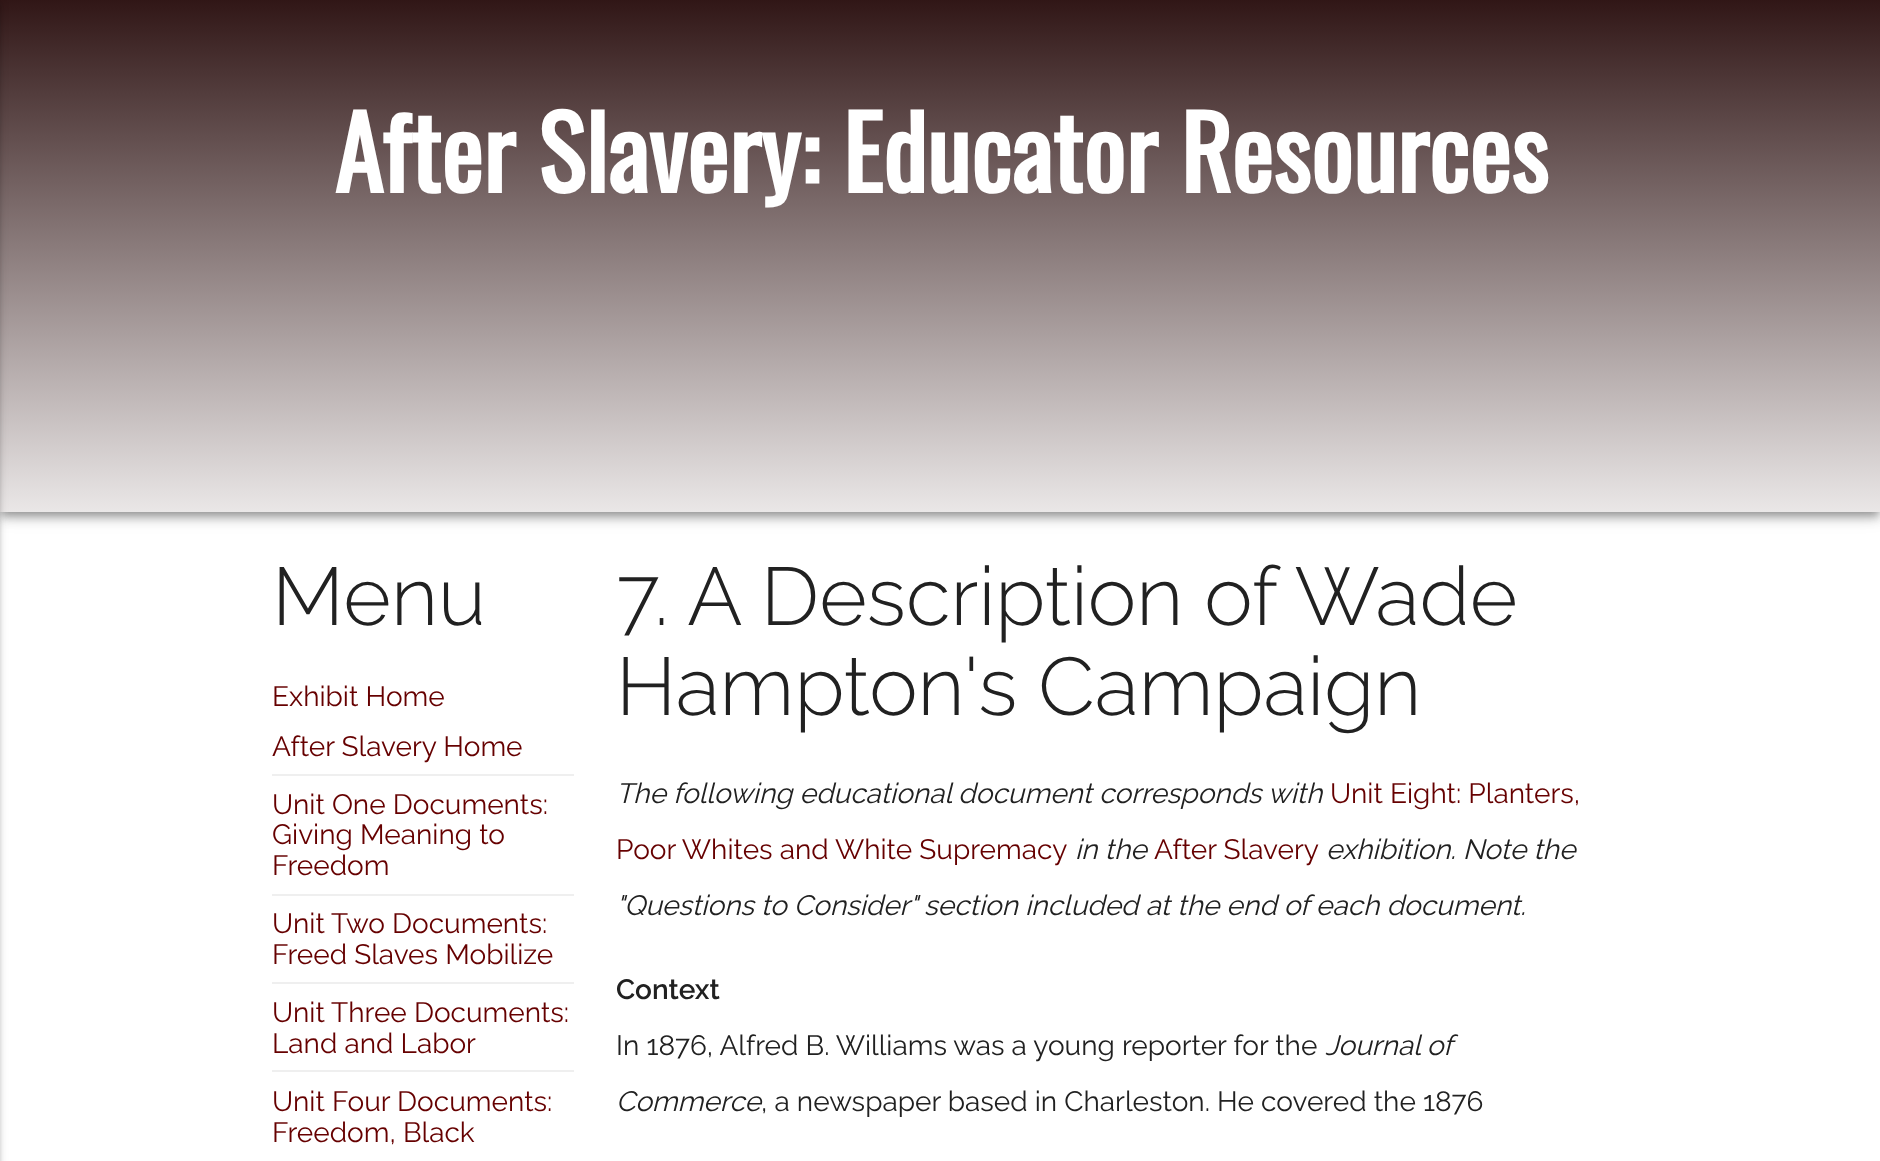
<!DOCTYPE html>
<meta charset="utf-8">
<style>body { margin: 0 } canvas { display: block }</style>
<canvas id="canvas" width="1880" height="1161"></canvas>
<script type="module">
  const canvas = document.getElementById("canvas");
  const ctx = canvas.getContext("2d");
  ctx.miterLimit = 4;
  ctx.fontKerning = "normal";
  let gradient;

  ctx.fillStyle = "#ffffff";
  ctx.fillRect(0, 0, 1880, 1161);
  ctx.fillStyle = "rgba(0, 0, 0, 0.3)";
  ctx.filter = "blur(4px)";
  ctx.beginPath();
  ctx.rect(2, -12, 1876, 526);
  ctx.fill();
  ctx.filter = "none";
  ctx.fillStyle = "rgba(0, 0, 0, 0.12)";
  ctx.filter = "blur(10px)";
  ctx.beginPath();
  ctx.rect(0, -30, 1880, 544);
  ctx.fill();
  ctx.filter = "none";
  ctx.fillStyle = "rgba(0, 0, 0, 0.14)";
  ctx.filter = "blur(5px)";
  ctx.beginPath();
  ctx.rect(0, -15, 1880, 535);
  ctx.fill();
  ctx.filter = "none";
  gradient = ctx.createLinearGradient(940, -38, 940, 512);
  gradient.addColorStop(0, "#230707");
  gradient.addColorStop(1, "#eae7e7");
  ctx.fillStyle = gradient;
  ctx.fillRect(0, 0, 1880, 512);
  ctx.fillStyle = "rgba(0, 0, 0, 0.12)";
  ctx.filter = "blur(5px)";
  ctx.beginPath();
  ctx.rect(-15, 2, 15, 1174);
  ctx.fill();
  ctx.filter = "none";
  ctx.fillStyle = "rgba(0, 0, 0, 0.14)";
  ctx.filter = "blur(2px)";
  ctx.beginPath();
  ctx.rect(-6, 4, 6, 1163);
  ctx.fill();
  ctx.filter = "none";
  ctx.font = "bold 99.75px Oswald";
  ctx.fillStyle = "#ffffff";
  ctx.fillText("After Slavery: Educator Resources", 334, 193);
  ctx.font = "300 81.75px Raleway";
  ctx.fillStyle = "#212121";
  ctx.fillText("Menu", 272, 625);
  ctx.font = "28px Raleway";
  ctx.fillStyle = "#660000";
  ctx.fillText("Exhibit Home", 272, 706);
  ctx.fillStyle = "#efefef";
  ctx.fillRect(272, 774, 302, 2);
  ctx.fillStyle = "#660000";
  ctx.fillText("After Slavery Home", 272, 756);
  ctx.fillStyle = "#efefef";
  ctx.fillRect(272, 894, 302, 2);
  ctx.fillStyle = "#660000";
  ctx.fillText("Unit One Documents:", 272, 814);
  ctx.fillText("Giving Meaning to", 272, 844);
  ctx.fillText("Freedom", 272, 875);
  ctx.fillStyle = "#efefef";
  ctx.fillRect(272, 982, 302, 2);
  ctx.fillStyle = "#660000";
  ctx.fillText("Unit Two Documents:", 272, 933);
  ctx.fillText("Freed Slaves Mobilize", 272, 964);
  ctx.fillStyle = "#efefef";
  ctx.fillRect(272, 1070, 302, 2);
  ctx.fillStyle = "#660000";
  ctx.fillText("Unit Three Documents:", 272, 1022);
  ctx.fillText("Land and Labor", 272, 1053);
  ctx.fillText("Unit Four Documents:", 272, 1111);
  ctx.fillText("Freedom, Black", 272, 1142);
  ctx.font = "300 81.75px Raleway";
  ctx.fillStyle = "#212121";
  ctx.fillText("7. A Description of Wade", 616, 625);
  ctx.fillText("Hampton's Campaign", 616, 715);
  ctx.font = "italic 28px Raleway";
  ctx.fillText("The following educational document corresponds with", 616, 803);
  ctx.font = "28px Raleway";
  ctx.fillStyle = "#660000";
  ctx.fillText("Unit Eight: Planters,", 1330, 803);
  ctx.fillText("Poor Whites and White Supremacy", 616, 859);
  ctx.font = "italic 28px Raleway";
  ctx.fillStyle = "#212121";
  ctx.fillText("in the", 1075, 859);
  ctx.font = "28px Raleway";
  ctx.fillStyle = "#660000";
  ctx.fillText("After Slavery", 1154, 859);
  ctx.font = "italic 28px Raleway";
  ctx.fillStyle = "#212121";
  ctx.fillText("exhibition. Note the", 1326, 859);
  ctx.fillText("\"Questions to Consider\" section included at the end of each document.", 616, 915);
  ctx.font = "600 28px Raleway";
  ctx.fillText("Context", 616, 999);
  ctx.font = "28px Raleway";
  ctx.fillText("In 1876, Alfred B. Williams was a young reporter for the", 616, 1055);
  ctx.font = "italic 28px Raleway";
  ctx.fillText("Journal of", 1325, 1055);
  ctx.fillText("Commerce", 616, 1111);
  ctx.font = "28px Raleway";
  ctx.fillText(", a newspaper based in Charleston. He covered the 1876", 761, 1111);
</script>
